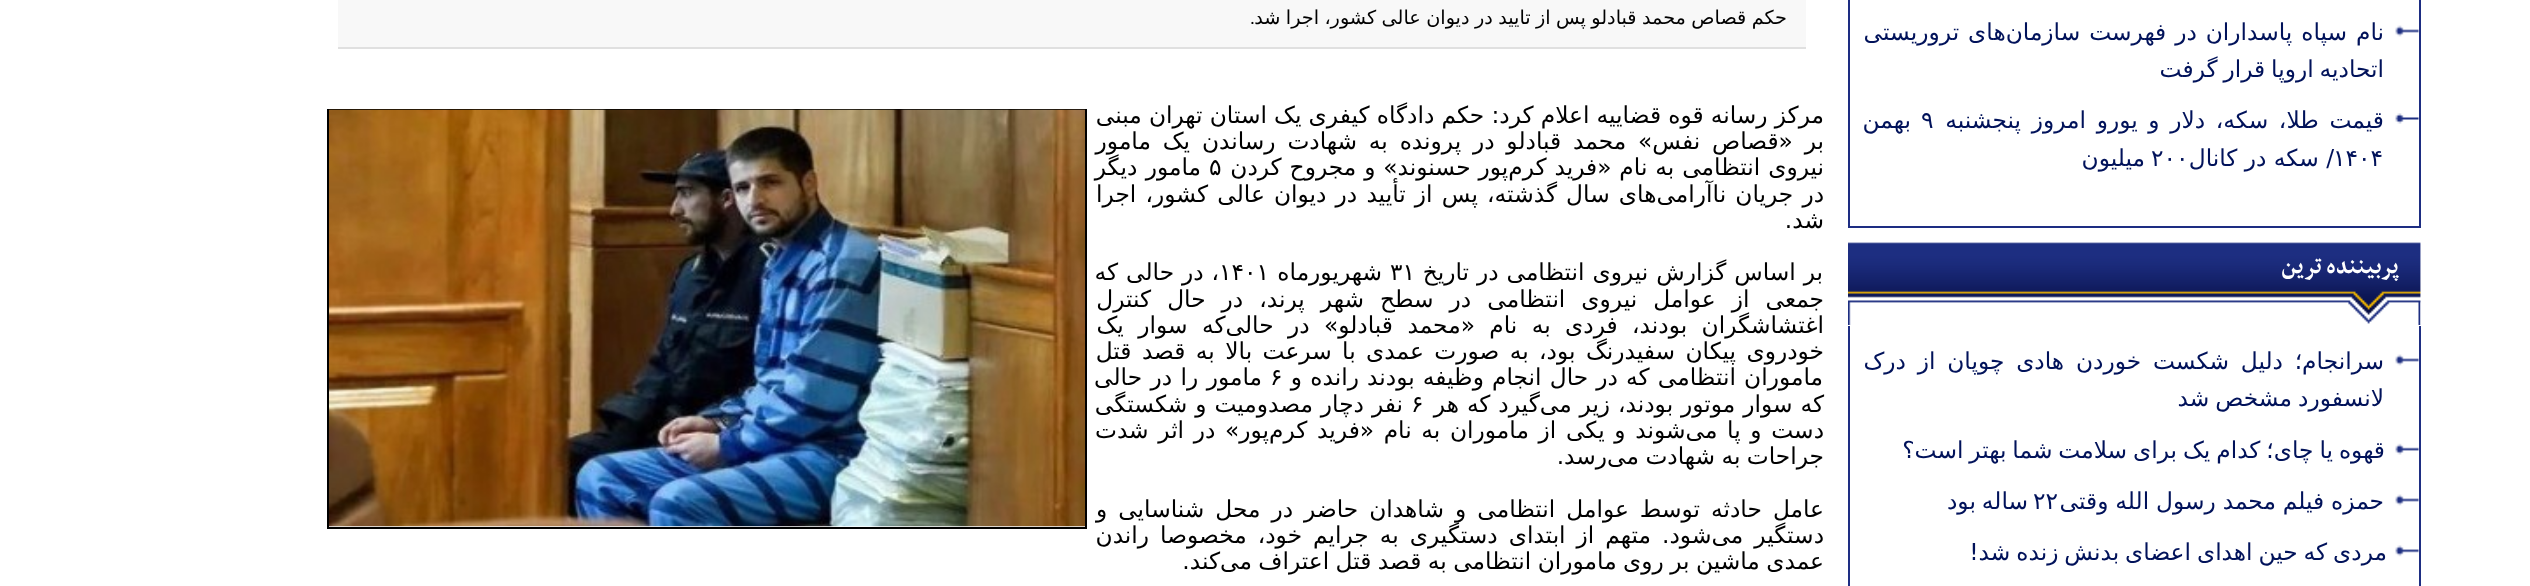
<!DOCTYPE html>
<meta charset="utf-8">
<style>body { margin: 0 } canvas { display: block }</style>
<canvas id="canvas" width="2530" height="586"></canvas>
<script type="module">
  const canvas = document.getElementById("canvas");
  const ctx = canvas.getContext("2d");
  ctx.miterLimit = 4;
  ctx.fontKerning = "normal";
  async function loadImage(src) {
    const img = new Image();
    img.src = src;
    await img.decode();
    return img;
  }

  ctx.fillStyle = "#ffffff";
  ctx.fillRect(0, 0, 2530, 586);
  ctx.fillStyle = "#1d2d82";
  ctx.fillRect(2419, 0, 2, 228);
  ctx.fillRect(1848, 226, 572, 2);
  ctx.fillRect(1848, 0, 2, 228);
  ctx.drawImage(await loadImage("img1.png"), 2395, 25, 24, 12);
  ctx.wordSpacing = "1.5px";
  ctx.direction = "rtl";
  ctx.font = "23.3px DejaVu Sans";
  ctx.fillStyle = "#01125a";
  ctx.fillText("نام سپاه پاسداران در فهرست سازمان‌های تروریستی", 2384, 40);
  ctx.wordSpacing = "-1.5px";
  ctx.fillText("اتحادیه اروپا قرار گرفت", 2384, 77);
  ctx.drawImage(await loadImage("img2.png"), 2395, 113, 24, 11);
  ctx.wordSpacing = "3.25px";
  ctx.fillText("قیمت طلا، سکه، دلار و یورو امروز پنجشنبه", 2384, 128);
  ctx.wordSpacing = "0px";
  ctx.direction = "ltr";
  ctx.fillText("۹", 1921, 128);
  ctx.direction = "rtl";
  ctx.fillText("بهمن", 1911, 128);
  ctx.direction = "ltr";
  ctx.fillText("۱۴۰۴", 2333, 166);
  ctx.direction = "rtl";
  ctx.fillText("/ سکه در کانال", 2334, 166);
  ctx.direction = "ltr";
  ctx.fillText("۲۰۰", 2151, 166);
  ctx.direction = "rtl";
  ctx.fillText("میلیون", 2145, 166);
  ctx.drawImage(await loadImage("img3.png"), 1848, 242, 573, 61);
  ctx.drawImage(await loadImage("img4.png"), 2348, 242, 73, 83);
  ctx.font = "bold 26.25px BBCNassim";
  ctx.fillStyle = "#ffffff";
  ctx.fillText("پربیننده ترین", 2399, 273);
  ctx.drawImage(await loadImage("img5.png"), 1848, 301, 3, 24);
  ctx.fillStyle = "#1e2e83";
  ctx.fillRect(2419, 326, 2, 260);
  ctx.fillRect(1848, 326, 2, 260);
  ctx.drawImage(await loadImage("img1.png"), 2395, 354, 24, 12);
  ctx.wordSpacing = "4.4px";
  ctx.font = "23.3px DejaVu Sans";
  ctx.fillStyle = "#01125a";
  ctx.fillText("سرانجام؛ دلیل شکست خوردن هادی چوپان از درک", 2384, 369);
  ctx.wordSpacing = "-1.5px";
  ctx.fillText("لانسفورد مشخص شد", 2384, 406);
  ctx.drawImage(await loadImage("img6.png"), 2395, 443, 24, 12);
  ctx.fillText("قهوه یا چای؛ کدام یک برای سلامت شما بهتر است؟", 2385, 458);
  ctx.drawImage(await loadImage("img1.png"), 2395, 494, 24, 12);
  ctx.wordSpacing = "-0.5px";
  ctx.fillText("حمزه فیلم محمد رسول الله وقتی", 2384, 509);
  ctx.wordSpacing = "0px";
  ctx.direction = "ltr";
  ctx.fillText("۲۲", 2033, 509);
  ctx.wordSpacing = "-1.5px";
  ctx.direction = "rtl";
  ctx.fillText("ساله بود", 2028, 509);
  ctx.drawImage(await loadImage("img7.png"), 2395, 545, 24, 12);
  ctx.fillText("مردی که حین اهدای اعضای بدنش زنده شد!", 2387, 560);
  ctx.fillStyle = "#f8f8f8";
  ctx.fillRect(338, 0, 1468, 47);
  ctx.fillStyle = "#e0e0e0";
  ctx.fillRect(338, 47, 1468, 2);
  ctx.wordSpacing = "-0.75px";
  ctx.font = "19.25px DejaVu Sans";
  ctx.fillStyle = "#000000";
  ctx.fillText("حکم قصاص محمد قبادلو پس از تایید در دیوان عالی کشور، اجرا شد", 1787, 24);
  ctx.wordSpacing = "0px";
  ctx.font = "19.25px Liberation Sans";
  ctx.fillText(".", 1255, 24);
  ctx.wordSpacing = "-0.25px";
  ctx.font = "23.3px DejaVu Sans";
  ctx.fillText("مرکز رسانه قوه قضاییه اعلام کرد: حکم دادگاه کیفری یک استان تهران مبنی", 1824, 123);
  ctx.wordSpacing = "4.4px";
  ctx.fillText("بر «قصاص نفس» محمد قبادلو در پرونده به شهادت رساندن یک مامور", 1824, 149);
  ctx.wordSpacing = "0.5px";
  ctx.fillText("نیروی انتظامی به نام «فرید کرم‌پور حسنوند» و مجروح کردن", 1824, 175);
  ctx.wordSpacing = "0px";
  ctx.direction = "ltr";
  ctx.fillText("۵", 1209, 175);
  ctx.wordSpacing = "1px";
  ctx.direction = "rtl";
  ctx.fillText("مامور دیگر", 1201, 175);
  ctx.wordSpacing = "1.75px";
  ctx.fillText("در جریان ناآرامی‌های سال گذشته، پس از تأیید در دیوان عالی کشور، اجرا", 1824, 202);
  ctx.wordSpacing = "0px";
  ctx.fillText("شد.", 1824, 228);
  ctx.strokeStyle = "#000000";
  ctx.lineWidth = 2;
  ctx.strokeRect(328, 110, 758, 418);
  ctx.drawImage(await loadImage("img8.png"), 329, 109, 756, 418);
  ctx.wordSpacing = "0.5px";
  ctx.fillText("بر اساس گزارش نیروی انتظامی در تاریخ", 1823, 280);
  ctx.wordSpacing = "0px";
  ctx.direction = "ltr";
  ctx.fillText("۳۱", 1390, 280);
  ctx.direction = "rtl";
  ctx.fillText("شهریورماه", 1382, 280);
  ctx.direction = "ltr";
  ctx.fillText("۱۴۰۱", 1219, 280);
  ctx.wordSpacing = "0.5px";
  ctx.direction = "rtl";
  ctx.fillText("، در حالی که", 1219, 280);
  ctx.wordSpacing = "8.6px";
  ctx.fillText("جمعی از عوامل نیروی انتظامی در سطح شهر پرند، در حال کنترل", 1824, 307);
  ctx.wordSpacing = "7px";
  ctx.fillText("اغتشاشگران بودند، فردی به نام «محمد قبادلو» در حالی‌که سوار یک", 1824, 333);
  ctx.wordSpacing = "3px";
  ctx.fillText("خودروی پیکان سفیدرنگ بود، به صورت عمدی با سرعت بالا به قصد قتل", 1824, 359);
  ctx.wordSpacing = "0.75px";
  ctx.fillText("ماموران انتظامی که در حال انجام وظیفه بودند رانده و", 1823, 385);
  ctx.wordSpacing = "0px";
  ctx.direction = "ltr";
  ctx.fillText("۶", 1270, 385);
  ctx.wordSpacing = "1px";
  ctx.direction = "rtl";
  ctx.fillText("مامور را در حالی", 1262, 385);
  ctx.wordSpacing = "0.5px";
  ctx.fillText("که سوار موتور بودند، زیر می‌گیرد که هر", 1824, 412);
  ctx.wordSpacing = "0px";
  ctx.direction = "ltr";
  ctx.fillText("۶", 1411, 412);
  ctx.wordSpacing = "0.5px";
  ctx.direction = "rtl";
  ctx.fillText("نفر دچار مصدومیت و شکستگی", 1403, 412);
  ctx.wordSpacing = "2.25px";
  ctx.fillText("دست و پا می‌شوند و یکی از ماموران به نام «فرید کرم‌پور» در اثر شدت", 1824, 438);
  ctx.wordSpacing = "-1px";
  ctx.fillText("جراحات به شهادت می‌رسد.", 1824, 464);
  ctx.wordSpacing = "3.6px";
  ctx.fillText("عامل حادثه توسط عوامل انتظامی و شاهدان حاضر در محل شناسایی و", 1824, 517);
  ctx.fillText("دستگیر می‌شود. متهم از ابتدای دستگیری به جرایم خود، مخصوصا راندن", 1824, 543);
  ctx.wordSpacing = "-1px";
  ctx.fillText("عمدی ماشین بر روی ماموران انتظامی به قصد قتل اعتراف می‌کند.", 1824, 569);
</script>
